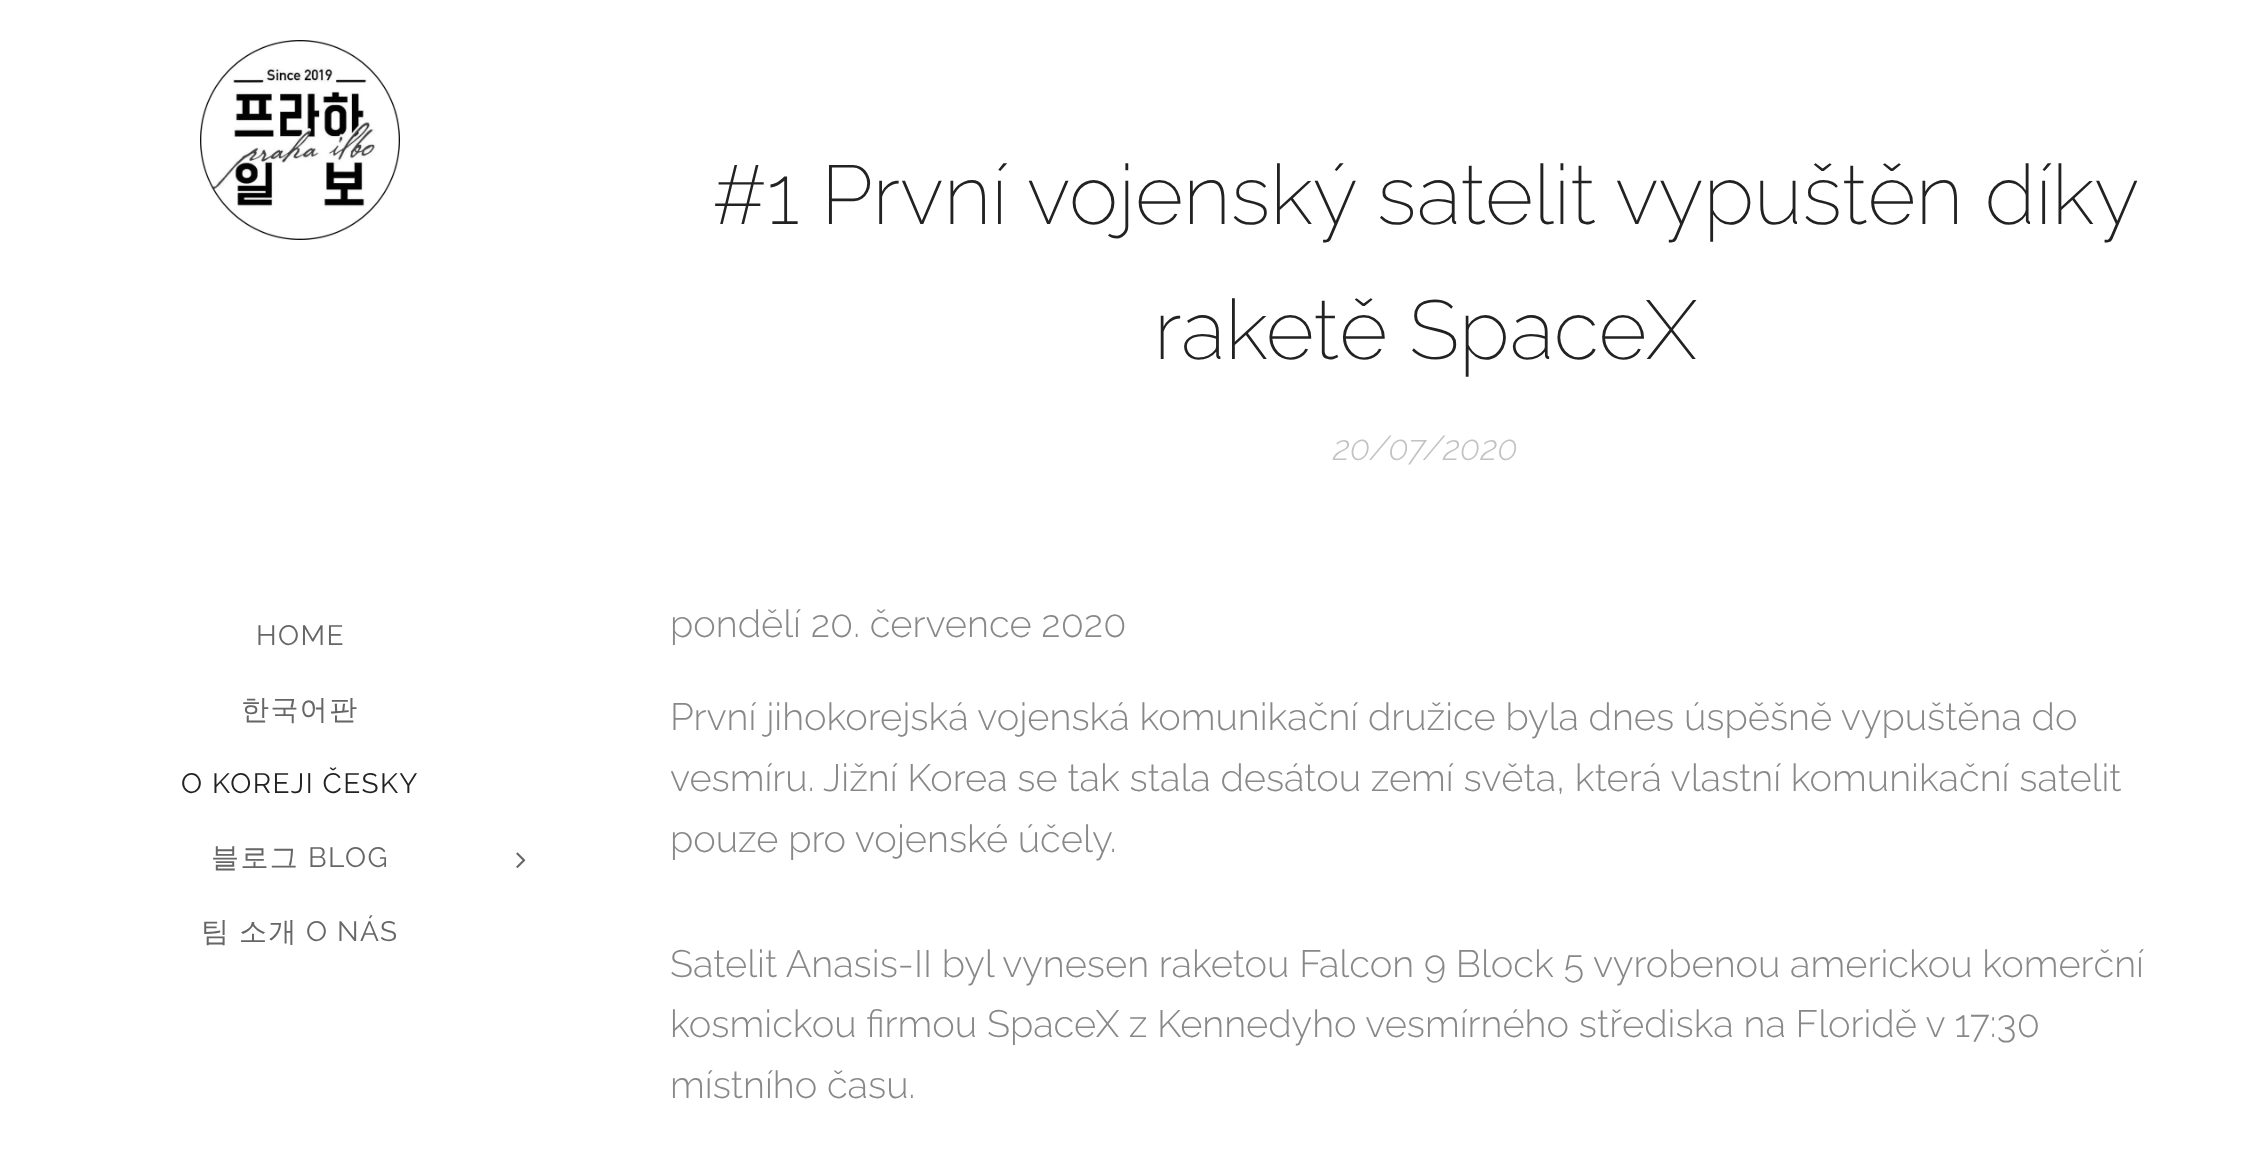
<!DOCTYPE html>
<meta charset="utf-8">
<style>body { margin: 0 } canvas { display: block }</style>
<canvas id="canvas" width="2249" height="1164"></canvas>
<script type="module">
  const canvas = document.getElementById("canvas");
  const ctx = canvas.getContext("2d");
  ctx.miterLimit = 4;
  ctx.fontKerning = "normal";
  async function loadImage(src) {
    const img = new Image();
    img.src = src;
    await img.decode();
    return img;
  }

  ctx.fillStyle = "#ffffff";
  ctx.fillRect(0, 0, 2249, 1164);
  ctx.drawImage(await loadImage("img1.png"), 200, 40, 200, 200);
  ctx.letterSpacing = "1.4px";
  ctx.font = "28px Raleway";
  ctx.fillStyle = "#666666";
  ctx.fillText("HOME", 256, 645);
  ctx.font = "500 28px WenQuanYi Zen Hei";
  ctx.fillText("한국어판", 241, 719);
  ctx.font = "28px Raleway";
  ctx.fillStyle = "#222222";
  ctx.fillText("O KOREJI ČESKY", 181, 793);
  ctx.font = "500 28px WenQuanYi Zen Hei";
  ctx.fillStyle = "#666666";
  ctx.fillText("블로그", 211, 867);
  ctx.font = "28px Raleway";
  ctx.fillText("BLOG", 308, 867);
  ctx.drawImage(await loadImage("img2.png"), 516, 852, 10, 16);
  ctx.font = "500 28px WenQuanYi Zen Hei";
  ctx.fillText("팀", 201, 941);
  ctx.fillText("소개", 239, 941);
  ctx.font = "28px Raleway";
  ctx.fillText("O NÁS", 306, 941);
  ctx.letterSpacing = "0px";
  ctx.font = "200 83.25px Raleway";
  ctx.fillStyle = "#222222";
  ctx.fillText("#1 První vojenský satelit vypuštěn díky", 712, 224);
  ctx.fillText("raketě SpaceX", 1154, 359);
  ctx.font = "italic 300 34.5px Raleway";
  ctx.fillStyle = "#c3c3c3";
  ctx.fillText("20/07/2020", 1333, 460);
  ctx.font = "300 38px Raleway";
  ctx.fillStyle = "#888888";
  ctx.fillText("pondělí 20. července 2020", 670, 637);
  ctx.fillText("První jihokorejská vojenská komunikační družice byla dnes úspěšně vypuštěna do", 670, 730);
  ctx.fillText("vesmíru. Jižní Korea se tak stala desátou zemí světa, která vlastní komunikační satelit", 670, 791);
  ctx.fillText("pouze pro vojenské účely.", 670, 852);
  ctx.fillText("Satelit Anasis-II byl vynesen raketou Falcon 9 Block 5 vyrobenou americkou komerční", 670, 977);
  ctx.fillText("kosmickou firmou SpaceX z Kennedyho vesmírného střediska na Floridě v 17:30", 670, 1037);
  ctx.fillText("místního času.", 670, 1098);
</script>
